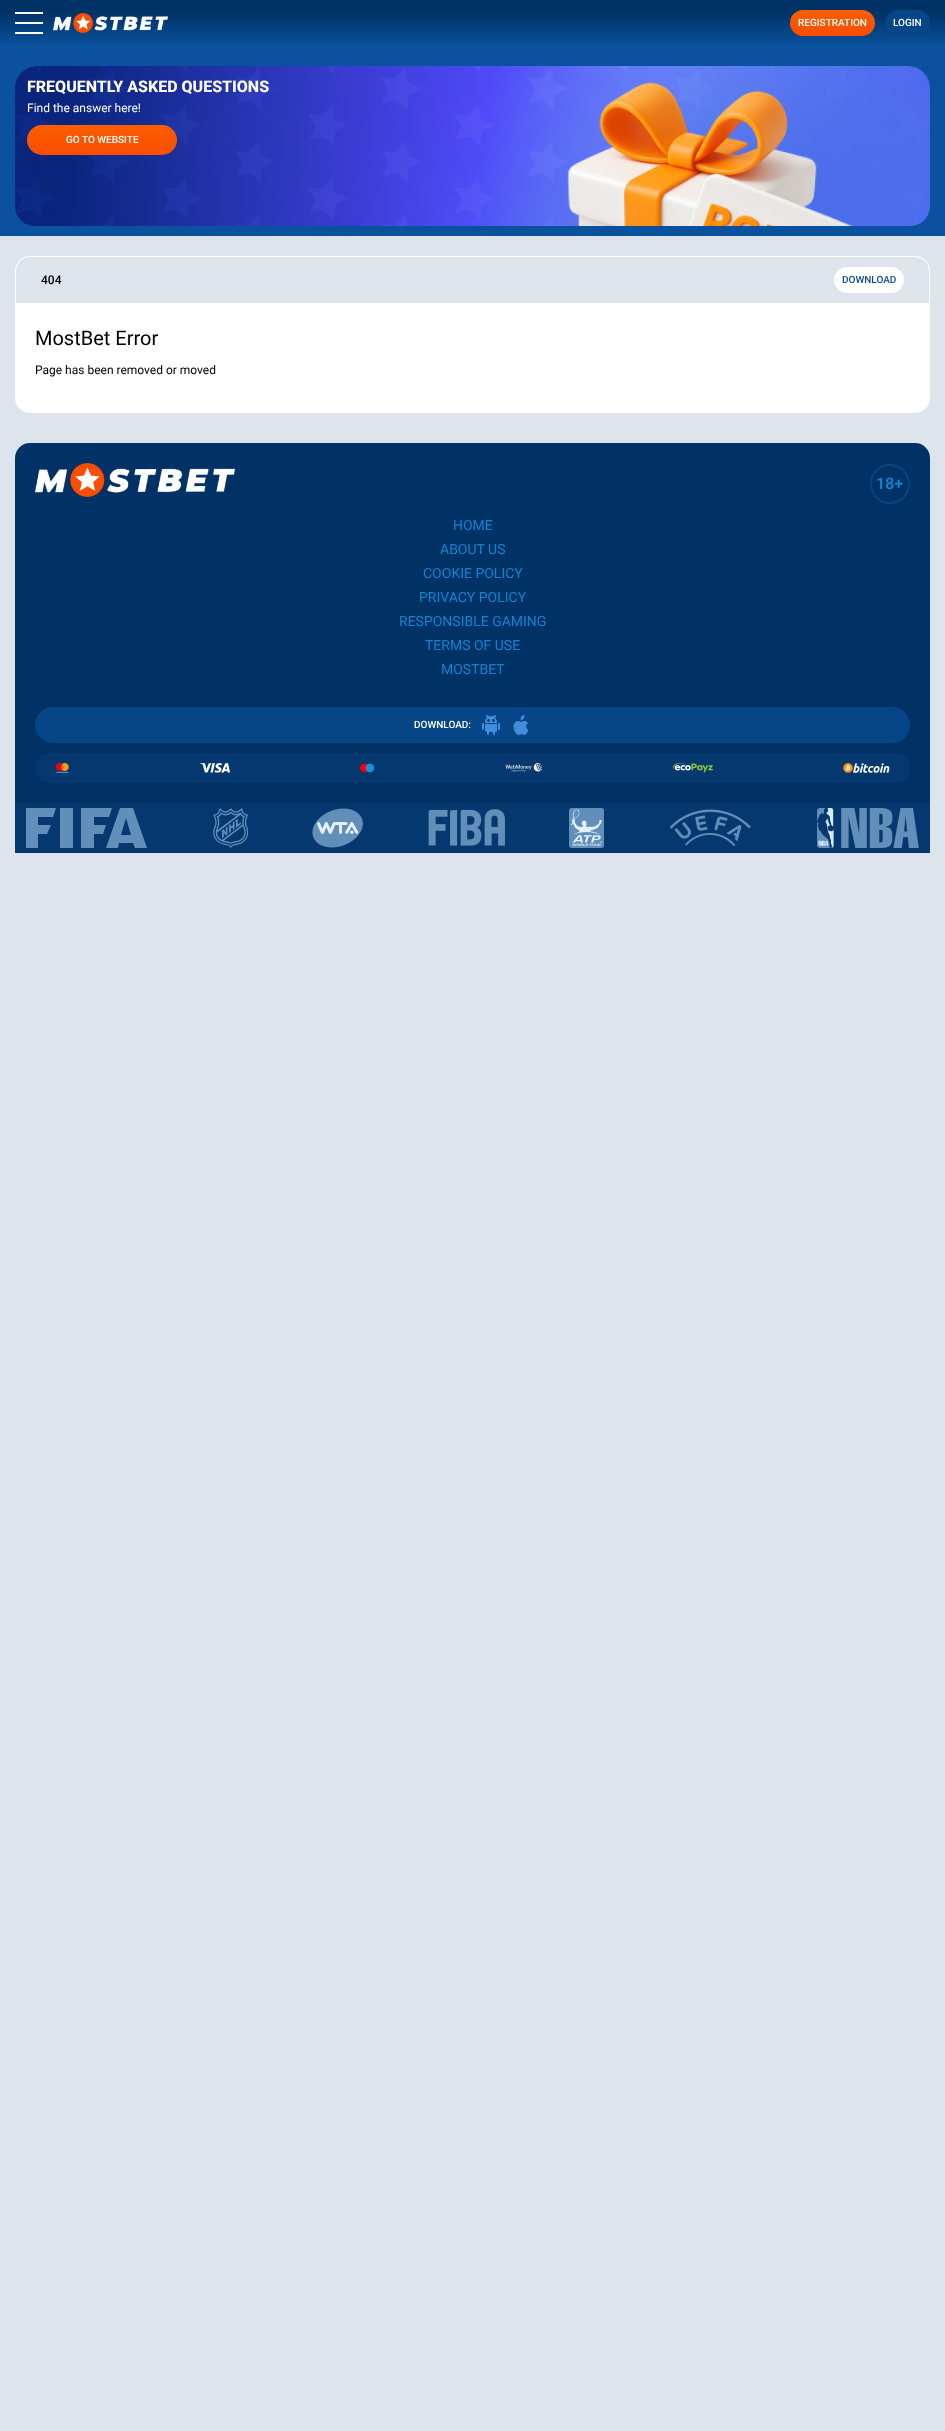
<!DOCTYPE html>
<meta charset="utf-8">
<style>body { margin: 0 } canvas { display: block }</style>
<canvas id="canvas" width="945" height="2431"></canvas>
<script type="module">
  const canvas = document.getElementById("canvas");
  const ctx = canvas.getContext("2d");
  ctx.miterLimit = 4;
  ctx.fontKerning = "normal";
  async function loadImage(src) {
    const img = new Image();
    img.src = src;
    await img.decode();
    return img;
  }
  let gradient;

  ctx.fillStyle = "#dde4ec";
  ctx.fillRect(0, 0, 945, 2431);
  gradient = ctx.createLinearGradient(473, 46, 473, 0);
  gradient.addColorStop(0, "#0a519e");
  gradient.addColorStop(0.73, "#003266");
  gradient.addColorStop(0.98, "#003266");
  ctx.fillStyle = gradient;
  ctx.fillRect(0, 0, 945, 46);
  ctx.fillStyle = "#ffffff";
  ctx.fillRect(15, 12, 28, 2);
  ctx.fillRect(15, 22, 28, 2);
  ctx.fillRect(15, 32, 28, 2);
  ctx.drawImage(await loadImage("img1.png"), 53, 13, 115, 20);
  gradient = ctx.createLinearGradient(833, 36, 833, 10);
  gradient.addColorStop(0, "#fa4d00");
  gradient.addColorStop(1, "#fa5e00");
  ctx.fillStyle = gradient;
  ctx.beginPath();
  ctx.roundRect(790, 10, 85, 26, 13);
  ctx.fill();
  ctx.font = "500 10px Roboto";
  ctx.fillStyle = "#ffffff";
  ctx.fillText("REGISTRATION", 798, 26);
  ctx.fillStyle = "#054588";
  ctx.beginPath();
  ctx.roundRect(885, 10, 45, 26, 13);
  ctx.fill();
  ctx.fillStyle = "#ffffff";
  ctx.fillText("LOGIN", 893, 26);
  ctx.fillStyle = "#0a519e";
  ctx.fillRect(0, 46, 945, 190);
  ctx.drawImage(await loadImage("img2.png"), 15, 66, 915, 160);
  ctx.font = "800 16px Roboto";
  ctx.fillStyle = "#ffffff";
  ctx.fillText("FREQUENTLY ASKED QUESTIONS", 27, 92);
  ctx.font = "12px Roboto";
  ctx.fillText("Find the answer here!", 27, 112);
  gradient = ctx.createLinearGradient(102, 155, 102, 125);
  gradient.addColorStop(0, "#fa4d00");
  gradient.addColorStop(1, "#fa5e00");
  ctx.fillStyle = gradient;
  ctx.beginPath();
  ctx.roundRect(27, 125, 150, 30, 15);
  ctx.fill();
  ctx.font = "500 10px Roboto";
  ctx.fillStyle = "#ffffff";
  ctx.fillText("GO TO WEBSITE", 66, 143);
  ctx.beginPath();
  ctx.roundRect(15, 256, 915, 157, 15);
  ctx.fill();
  ctx.fillStyle = "#dde4ec";
  ctx.beginPath();
  ctx.roundRect(15.5, 256.5, 914, 47, [14.5, 14.5, 0, 0]);
  ctx.fill();
  ctx.strokeStyle = "#ffffff";
  ctx.stroke();
  ctx.font = "500 12px Roboto";
  ctx.fillStyle = "#000000";
  ctx.fillText("404", 41, 284);
  ctx.fillStyle = "#ffffff";
  ctx.beginPath();
  ctx.roundRect(834, 267, 70, 26, 13);
  ctx.fill();
  ctx.font = "500 10px Roboto";
  ctx.fillStyle = "#0a4c99";
  ctx.fillText("DOWNLOAD", 842, 283);
  ctx.font = "20px Roboto";
  ctx.fillStyle = "#000000";
  ctx.fillText("MostBet Error", 35, 345);
  ctx.font = "12px Roboto";
  ctx.fillText("Page has been removed or moved", 35, 374);
  ctx.fillStyle = "#003266";
  ctx.beginPath();
  ctx.roundRect(15, 443, 915, 360, [15, 15, 0, 0]);
  ctx.fill();
  ctx.drawImage(await loadImage("img3.png"), 35, 463, 200, 34);
  ctx.drawImage(await loadImage("img4.png"), 870, 464, 40, 40);
  ctx.font = "14px Roboto";
  ctx.fillStyle = "#1183d3";
  ctx.fillText("HOME", 453, 530);
  ctx.fillText("ABOUT US", 440, 554);
  ctx.fillText("COOKIE POLICY", 423, 578);
  ctx.fillText("PRIVACY POLICY", 419, 602);
  ctx.fillText("RESPONSIBLE GAMING", 399, 626);
  ctx.fillText("TERMS OF USE", 425, 650);
  ctx.fillText("MOSTBET", 441, 674);
  ctx.fillStyle = "#054588";
  ctx.beginPath();
  ctx.roundRect(35, 707, 875, 36, 18);
  ctx.fill();
  ctx.font = "500 10px Roboto";
  ctx.fillStyle = "#ffffff";
  ctx.fillText("DOWNLOAD:", 414, 728);
  ctx.drawImage(await loadImage("img5.png"), 482, 715, 18, 20);
  ctx.drawImage(await loadImage("img6.png"), 513, 715, 16, 20);
  ctx.fillStyle = "#04386e";
  ctx.beginPath();
  ctx.roundRect(35, 753, 875, 30, 15);
  ctx.fill();
  ctx.drawImage(await loadImage("img7.png"), 56, 763, 13, 10);
  ctx.drawImage(await loadImage("img8.png"), 200, 763, 30, 10);
  ctx.drawImage(await loadImage("img9.png"), 360, 763, 14, 10);
  ctx.drawImage(await loadImage("img10.png"), 505, 763, 37, 9);
  ctx.drawImage(await loadImage("img11.png"), 673, 763, 40, 10);
  ctx.drawImage(await loadImage("img12.png"), 843, 763, 47, 10);
  ctx.fillRect(15, 803, 915, 50);
  ctx.fillStyle = "#628eba";
  ctx.beginPath();
  ctx.moveTo(26, 848);
  ctx.lineTo(38, 848);
  ctx.lineTo(38, 834);
  ctx.lineTo(47, 834);
  ctx.lineTo(51, 825);
  ctx.lineTo(38, 825);
  ctx.lineTo(38, 817);
  ctx.lineTo(53, 817);
  ctx.lineTo(56, 808);
  ctx.lineTo(26, 808);
  ctx.closePath();
  ctx.moveTo(60, 848);
  ctx.lineTo(73, 848);
  ctx.lineTo(73, 808);
  ctx.lineTo(60, 808);
  ctx.closePath();
  ctx.moveTo(133, 808);
  ctx.lineTo(120, 808);
  ctx.lineTo(106, 848);
  ctx.lineTo(118, 848);
  ctx.lineTo(119, 843);
  ctx.lineTo(133, 843);
  ctx.lineTo(135, 848);
  ctx.lineTo(147, 848);
  ctx.closePath();
  ctx.moveTo(121, 835);
  ctx.lineTo(126, 818);
  ctx.lineTo(131, 835);
  ctx.closePath();
  ctx.moveTo(94, 825);
  ctx.lineTo(94, 817);
  ctx.lineTo(109, 817);
  ctx.lineTo(112, 808);
  ctx.lineTo(81, 808);
  ctx.lineTo(81, 848);
  ctx.lineTo(94, 848);
  ctx.lineTo(94, 834);
  ctx.lineTo(103, 834);
  ctx.lineTo(106, 825);
  ctx.closePath();
  ctx.fill();
  ctx.drawImage(await loadImage("img13.png"), 213, 808, 35, 40);
  ctx.drawImage(await loadImage("img14.png"), 312, 808, 51, 40);
  ctx.drawImage(await loadImage("img15.png"), 428, 809, 77, 37);
  ctx.drawImage(await loadImage("img16.png"), 569, 808, 35, 40);
  ctx.drawImage(await loadImage("img17.png"), 669, 809, 82, 38);
  ctx.drawImage(await loadImage("img18.png"), 817, 808, 102, 40);
</script>
